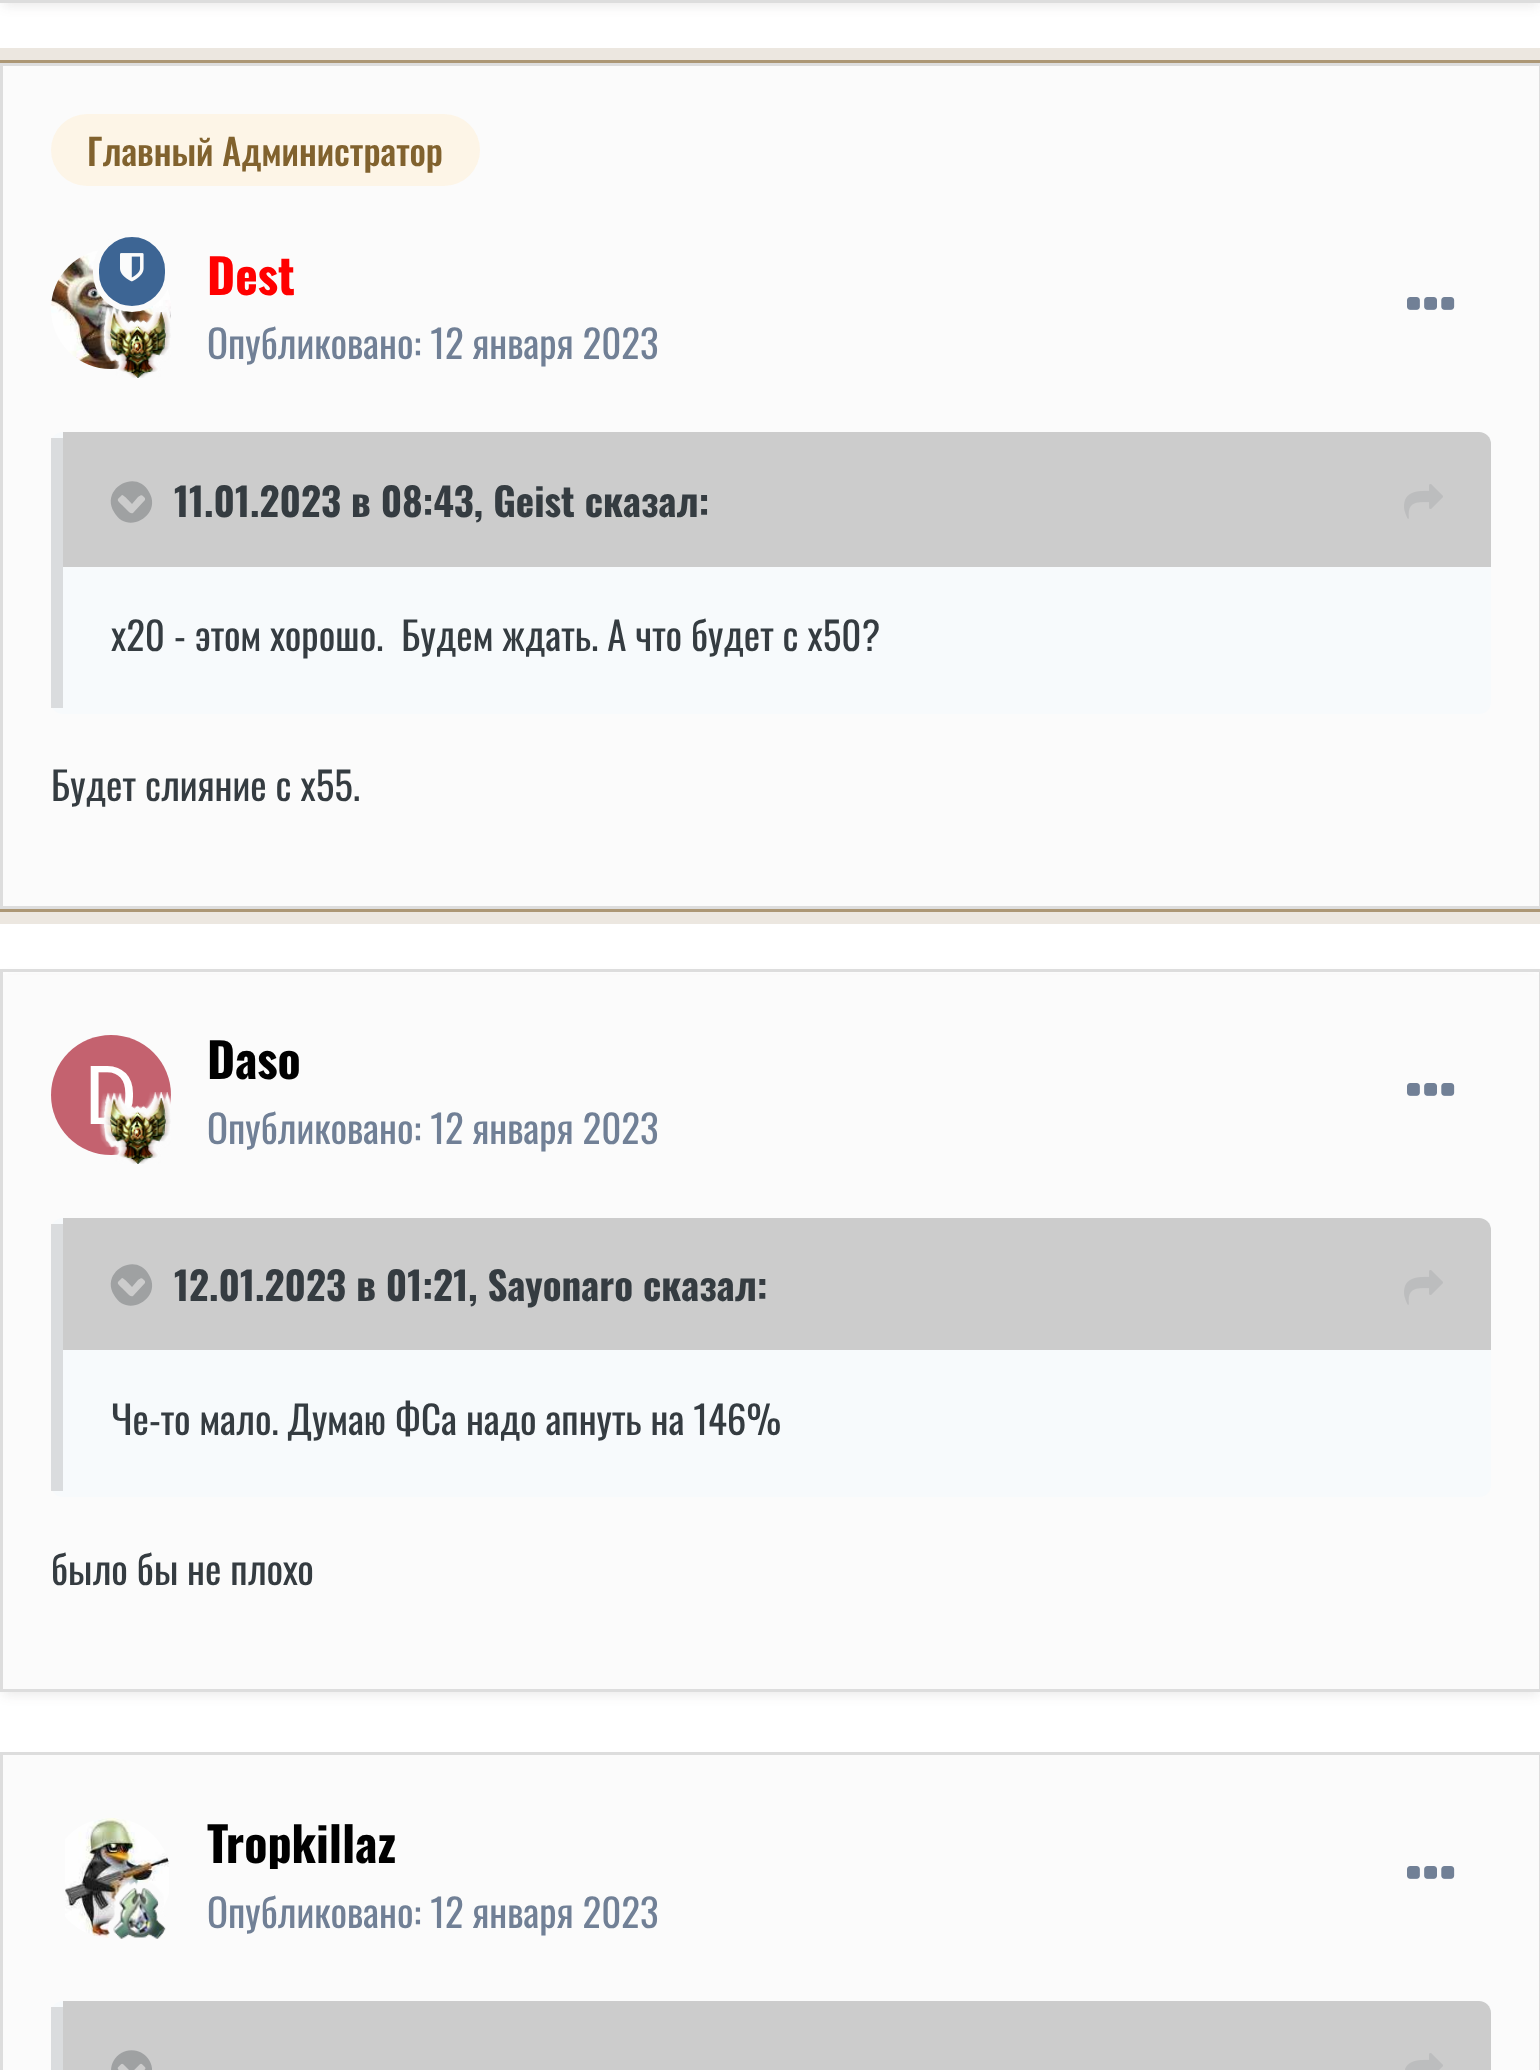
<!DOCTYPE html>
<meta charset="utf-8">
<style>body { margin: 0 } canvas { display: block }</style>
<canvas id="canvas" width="1540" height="2070"></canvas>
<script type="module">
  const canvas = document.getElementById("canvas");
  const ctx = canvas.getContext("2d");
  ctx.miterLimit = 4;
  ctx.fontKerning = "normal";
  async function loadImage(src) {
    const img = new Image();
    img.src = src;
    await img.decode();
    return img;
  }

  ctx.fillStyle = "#ffffff";
  ctx.fillRect(0, 0, 1540, 2070);
  ctx.fillStyle = "rgba(54, 53, 51, 0.1)";
  ctx.filter = "blur(6px)";
  ctx.beginPath();
  ctx.rect(3, -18, 1536, 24);
  ctx.fill();
  ctx.filter = "none";
  ctx.strokeStyle = "#dddddd";
  ctx.lineWidth = 3;
  ctx.strokeRect(1.5, -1.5, 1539, 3);
  ctx.strokeStyle = "#ece7e0";
  ctx.lineWidth = 15;
  ctx.strokeRect(-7.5, 55.5, 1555, 861);
  ctx.strokeStyle = "#ac9775";
  ctx.lineWidth = 3;
  ctx.strokeRect(-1.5, 61.5, 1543, 849);
  ctx.fillStyle = "#fbfbfb";
  ctx.beginPath();
  ctx.rect(1.5, 64.5, 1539, 843);
  ctx.fill();
  ctx.strokeStyle = "#dddddd";
  ctx.stroke();
  ctx.fillStyle = "#fdf5e7";
  ctx.beginPath();
  ctx.roundRect(51, 114, 429, 72, 36);
  ctx.fill();
  ctx.font = "500 36px Oswald";
  ctx.fillStyle = "#81622e";
  ctx.fillText("Главный Администратор", 87, 166);
  ctx.drawImage(await loadImage("img2.png"), 51, 250, 120, 119);
  ctx.fillStyle = "#3d6594";
  ctx.beginPath();
  ctx.roundRect(96, 234, 72, 75, 36);
  ctx.fill();
  ctx.strokeStyle = "#fbfbfb";
  ctx.lineWidth = 6;
  ctx.stroke();
  ctx.drawImage(await loadImage("img1.png"), 120, 253, 24, 29);
  ctx.drawImage(await loadImage("img3.png"), 99, 306, 72, 72);
  ctx.font = "bold 48px Oswald";
  ctx.fillStyle = "#ff0000";
  ctx.fillText("Dest", 207, 295);
  ctx.font = "39px Oswald";
  ctx.fillStyle = "#718096";
  ctx.fillText("Опубликовано: 12 января 2023", 207, 359);
  ctx.drawImage(await loadImage("img4.png"), 1407, 297, 48, 13);
  ctx.fillStyle = "#f7fafc";
  ctx.beginPath();
  ctx.roundRect(51, 432, 1440, 282, 12);
  ctx.fill();
  ctx.fillStyle = "rgba(54, 53, 51, 0.15)";
  ctx.fillRect(51, 438, 12, 270);
  ctx.fillStyle = "#cccccc";
  ctx.beginPath();
  ctx.roundRect(63, 432, 1428, 135, [0, 12, 0, 0]);
  ctx.fill();
  ctx.fillStyle = "#9fa1a2";
  ctx.beginPath();
  ctx.moveTo(133, 513);
  ctx.lineTo(145, 500);
  ctx.lineTo(145, 498);
  ctx.bezierCurveTo(142, 495, 142, 494, 138, 497);
  ctx.lineTo(132, 504);
  ctx.bezierCurveTo(130, 502, 124, 495, 122, 495);
  ctx.lineTo(120, 497);
  ctx.bezierCurveTo(116, 500, 118, 501, 122, 505);
  ctx.lineTo(128, 511);
  ctx.bezierCurveTo(129, 512, 131, 514, 133, 513);
  ctx.closePath();
  ctx.moveTo(149, 492);
  ctx.bezierCurveTo(163, 515, 127, 536, 114, 512);
  ctx.bezierCurveTo(100, 489, 136, 468, 149, 492);
  ctx.closePath();
  ctx.fill();
  ctx.font = "bold 39px Oswald";
  ctx.fillStyle = "#353c41";
  ctx.fillText("11.01.2023 в 08:43, Geist сказал:", 174, 517);
  ctx.drawImage(await loadImage("img5.png"), 1404, 484, 39, 35);
  ctx.font = "39px Oswald";
  ctx.fillText("х20 - этом хорошо.  Будем ждать. А что будет с х50?", 111, 651);
  ctx.fillText("Будет слияние с х55.", 51, 801);
  ctx.fillStyle = "rgba(54, 53, 51, 0.1)";
  ctx.filter = "blur(6px)";
  ctx.beginPath();
  ctx.rect(3, 978, 1536, 717);
  ctx.fill();
  ctx.filter = "none";
  ctx.fillStyle = "#fbfbfb";
  ctx.fillRect(3, 975, 1536, 714);
  ctx.strokeStyle = "#dddddd";
  ctx.lineWidth = 3;
  ctx.strokeRect(1.5, 970.5, 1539, 720);
  ctx.drawImage(await loadImage("img6.png"), 51, 1035, 120, 120);
  ctx.drawImage(await loadImage("img7.png"), 99, 1092, 72, 72);
  ctx.font = "bold 48px Oswald";
  ctx.fillStyle = "#000000";
  ctx.fillText("Daso", 207, 1079);
  ctx.font = "39px Oswald";
  ctx.fillStyle = "#718096";
  ctx.fillText("Опубликовано: 12 января 2023", 207, 1144);
  ctx.drawImage(await loadImage("img4.png"), 1407, 1083, 48, 13);
  ctx.fillStyle = "#f7fafc";
  ctx.beginPath();
  ctx.roundRect(51, 1218, 1440, 279, 12);
  ctx.fill();
  ctx.fillStyle = "rgba(54, 53, 51, 0.15)";
  ctx.fillRect(51, 1224, 12, 267);
  ctx.fillStyle = "#cccccc";
  ctx.beginPath();
  ctx.roundRect(63, 1218, 1428, 132, [0, 12, 0, 0]);
  ctx.fill();
  ctx.fillStyle = "#9fa1a2";
  ctx.beginPath();
  ctx.moveTo(133, 1296);
  ctx.lineTo(145, 1283);
  ctx.lineTo(145, 1281);
  ctx.bezierCurveTo(142, 1278, 142, 1277, 138, 1280);
  ctx.lineTo(132, 1287);
  ctx.bezierCurveTo(130, 1285, 124, 1278, 122, 1278);
  ctx.lineTo(120, 1280);
  ctx.bezierCurveTo(116, 1283, 118, 1284, 122, 1288);
  ctx.lineTo(128, 1294);
  ctx.bezierCurveTo(129, 1295, 131, 1297, 133, 1296);
  ctx.closePath();
  ctx.moveTo(149, 1275);
  ctx.bezierCurveTo(163, 1298, 127, 1319, 114, 1295);
  ctx.bezierCurveTo(100, 1272, 136, 1251, 149, 1275);
  ctx.closePath();
  ctx.fill();
  ctx.font = "bold 39px Oswald";
  ctx.fillStyle = "#353c41";
  ctx.fillText("12.01.2023 в 01:21, Sayonaro сказал:", 174, 1301);
  ctx.drawImage(await loadImage("img5.png"), 1404, 1270, 39, 35);
  ctx.font = "39px Oswald";
  ctx.fillText("Че-то мало. Думаю ФСа надо апнуть на 146%", 111, 1435);
  ctx.fillText("было бы не плохо", 51, 1585);
  ctx.fillStyle = "#fbfbfb";
  ctx.beginPath();
  ctx.rect(1.5, 1753.5, 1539, 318);
  ctx.fill();
  ctx.stroke();
  ctx.drawImage(await loadImage("img8.png"), 65, 1818, 104, 120);
  ctx.drawImage(await loadImage("img9.png"), 107, 1882, 59, 57);
  ctx.save();
  ctx.beginPath();
  ctx.rect(207, 1815, 189, 54);
  ctx.clip();
  ctx.font = "bold 48px Oswald";
  ctx.fillStyle = "#000000";
  ctx.fillText("Tropkillaz", 207, 1863);
  ctx.restore();
  ctx.fillStyle = "#718096";
  ctx.fillText("Опубликовано: 12 января 2023", 207, 1928);
  ctx.drawImage(await loadImage("img4.png"), 1407, 1866, 48, 13);
  ctx.fillStyle = "#f7fafc";
  ctx.beginPath();
  ctx.roundRect(51, 2001, 1440, 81, 12);
  ctx.fill();
  ctx.fillStyle = "rgba(54, 53, 51, 0.15)";
  ctx.fillRect(51, 2007, 12, 63);
  ctx.fillStyle = "#cccccc";
  ctx.beginPath();
  ctx.moveTo(63, 2001);
  ctx.lineTo(1479, 2001);
  ctx.bezierCurveTo(1485.5, 2001, 1491, 2006.5, 1491, 2013);
  ctx.lineTo(1491, 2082);
  ctx.lineTo(63, 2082);
  ctx.closePath();
  ctx.fill();
  ctx.drawImage(await loadImage("img10.png"), 111, 2050, 41, 20);
  ctx.drawImage(await loadImage("img11.png"), 1405, 2053, 38, 17);
</script>
